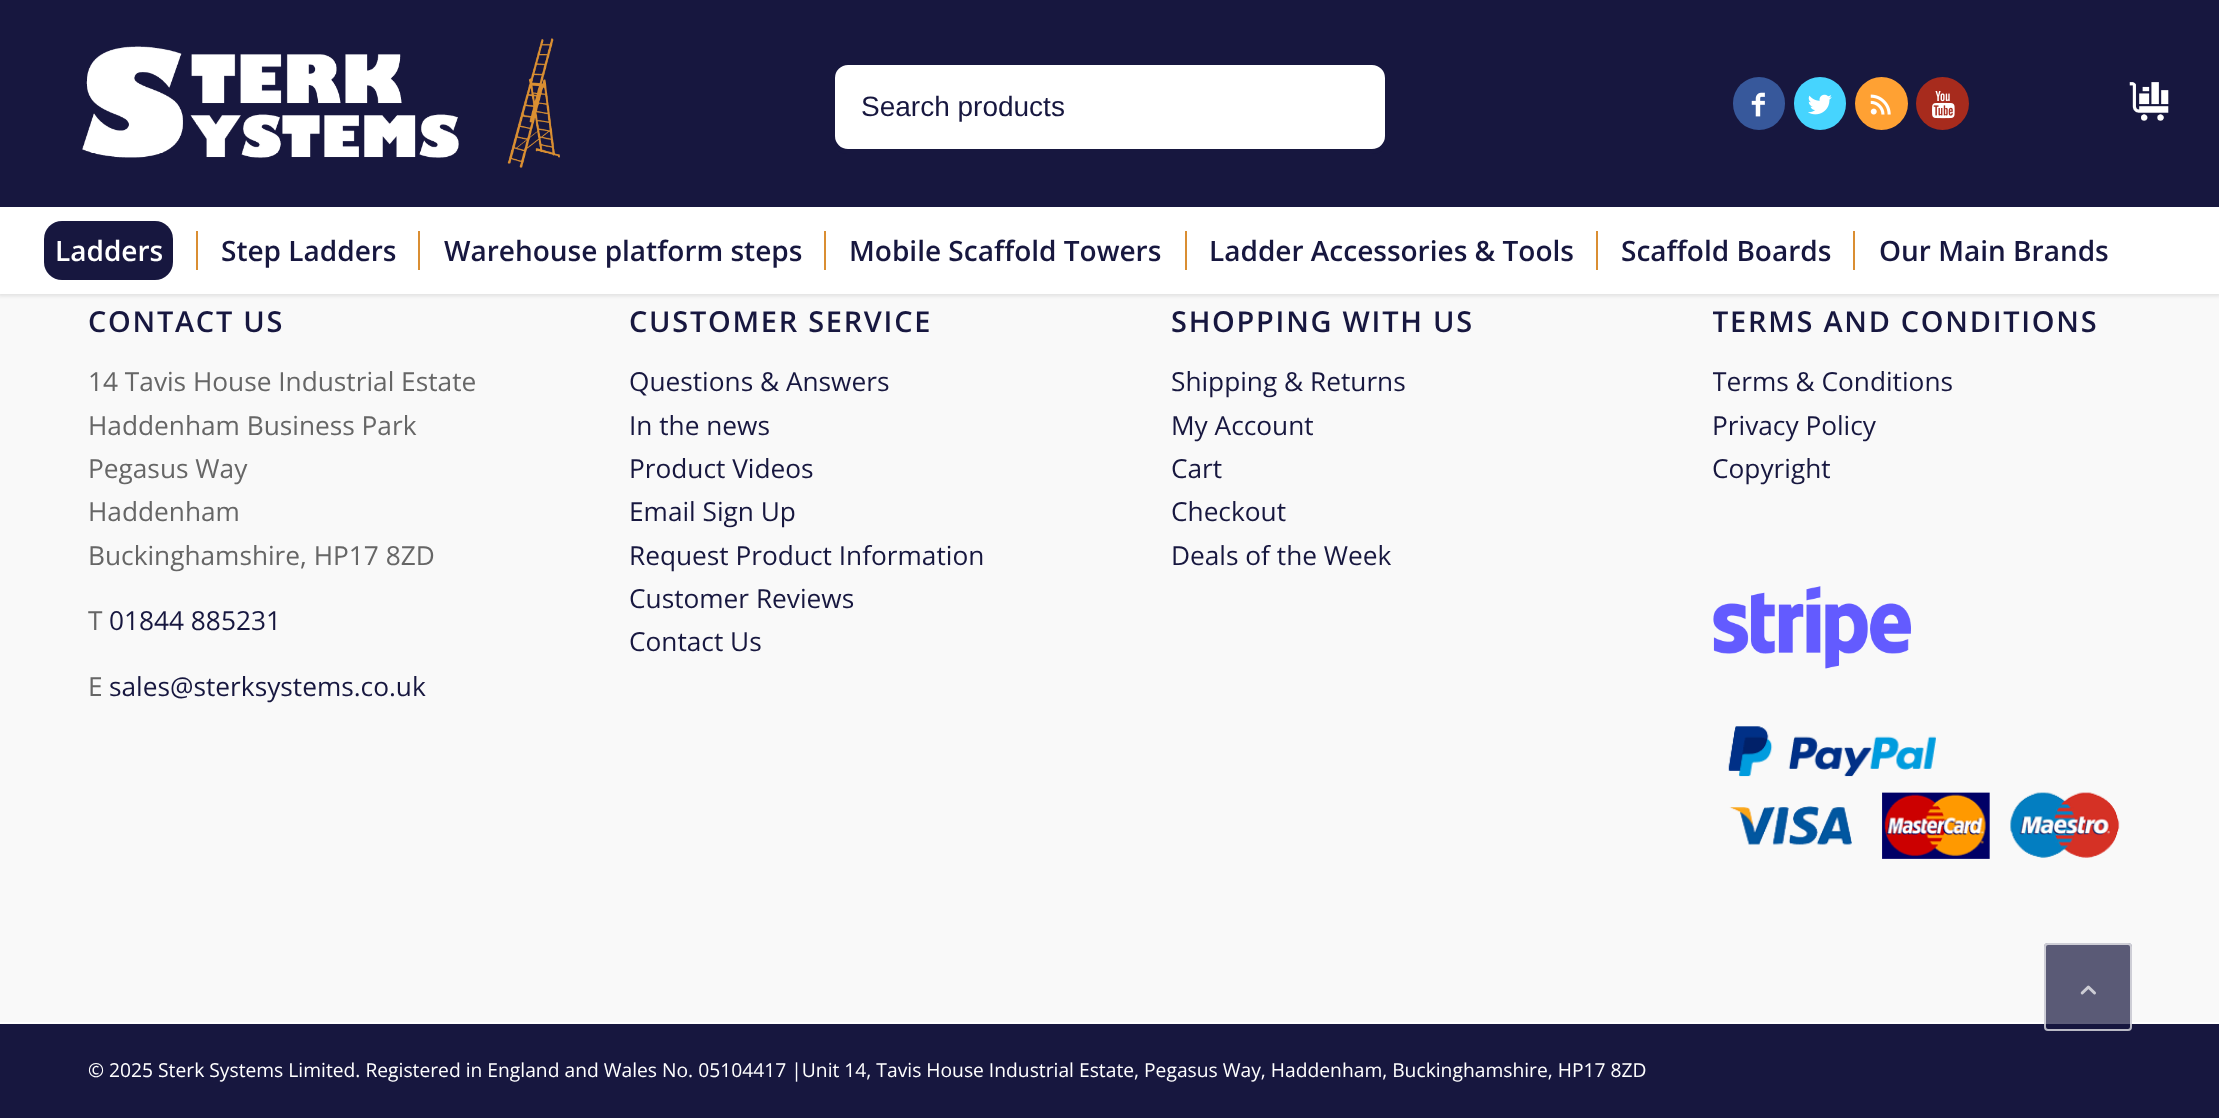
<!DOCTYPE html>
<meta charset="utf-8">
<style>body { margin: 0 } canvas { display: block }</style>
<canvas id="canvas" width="2219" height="1118"></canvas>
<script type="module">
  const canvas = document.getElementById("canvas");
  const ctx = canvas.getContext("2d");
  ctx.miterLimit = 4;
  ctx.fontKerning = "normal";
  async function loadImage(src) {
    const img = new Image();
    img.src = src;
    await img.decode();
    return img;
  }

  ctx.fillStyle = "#f9f9f9";
  ctx.fillRect(0, 0, 2219, 1118);
  ctx.fillStyle = "rgba(0, 0, 0, 0.1)";
  ctx.filter = "blur(2px)";
  ctx.beginPath();
  ctx.rect(-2, -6, 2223, 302);
  ctx.fill();
  ctx.filter = "none";
  ctx.fillStyle = "#17173f";
  ctx.fillRect(0, 0, 2219, 207);
  ctx.drawImage(await loadImage("img1.png"), 82, 38, 478, 130);
  ctx.fillStyle = "#37589b";
  ctx.beginPath();
  ctx.roundRect(1733, 77, 52, 53, 26);
  ctx.fill();
  ctx.drawImage(await loadImage("img2.png"), 1751, 92, 14, 25);
  ctx.fillStyle = "#46d4fe";
  ctx.beginPath();
  ctx.roundRect(1794, 77, 52, 53, 26);
  ctx.fill();
  ctx.drawImage(await loadImage("img3.png"), 1808, 94, 24, 21);
  ctx.fillStyle = "#ffa133";
  ctx.beginPath();
  ctx.arc(1881.5, 103.5, 26.5, 0, Math.PI * 2);
  ctx.fill();
  ctx.drawImage(await loadImage("img4.png"), 1870, 94, 21, 21);
  ctx.fillStyle = "#a72b1d";
  ctx.beginPath();
  ctx.arc(1942.5, 103.5, 26.5, 0, Math.PI * 2);
  ctx.fill();
  ctx.drawImage(await loadImage("img5.png"), 1932, 91, 23, 28);
  ctx.drawImage(await loadImage("img6.png"), 2129, 82, 40, 39);
  ctx.fillStyle = "#ffffff";
  ctx.beginPath();
  ctx.roundRect(832.5, 62.5, 555, 89, 15.5);
  ctx.fill();
  ctx.strokeStyle = "#17173f";
  ctx.lineWidth = 5;
  ctx.stroke();
  ctx.font = "28px Liberation Sans";
  ctx.fillStyle = "#17173f";
  ctx.fillText("Search products", 861, 116);
  ctx.fillStyle = "#ffffff";
  ctx.fillRect(0, 207, 2219, 87);
  ctx.fillStyle = "#17173f";
  ctx.beginPath();
  ctx.roundRect(44, 221, 129, 59, 18);
  ctx.fill();
  ctx.font = "600 28px Open Sans";
  ctx.fillStyle = "#ffffff";
  ctx.fillText("Ladders", 55, 261);
  ctx.fillStyle = "#17173f";
  ctx.fillText("Step Ladders", 221, 261);
  ctx.fillStyle = "#da8e32";
  ctx.fillRect(196, 231, 2, 39);
  ctx.fillStyle = "#17173f";
  ctx.fillText("Warehouse platform steps", 444, 261);
  ctx.fillStyle = "#da8e32";
  ctx.fillRect(418, 231, 2, 39);
  ctx.fillStyle = "#17173f";
  ctx.fillText("Mobile Scaffold Towers", 849, 261);
  ctx.fillStyle = "#da8e32";
  ctx.fillRect(824, 231, 2, 39);
  ctx.fillStyle = "#17173f";
  ctx.fillText("Ladder Accessories & Tools", 1209, 261);
  ctx.fillStyle = "#da8e32";
  ctx.fillRect(1185, 231, 2, 39);
  ctx.fillStyle = "#17173f";
  ctx.fillText("Scaffold Boards", 1621, 261);
  ctx.fillStyle = "#da8e32";
  ctx.fillRect(1596, 231, 2, 39);
  ctx.fillStyle = "#17173f";
  ctx.fillText("Our Main Brands", 1879, 261);
  ctx.fillStyle = "#da8e32";
  ctx.fillRect(1853, 231, 2, 39);
  ctx.letterSpacing = "1.75px";
  ctx.font = "600 28.9px Open Sans";
  ctx.fillStyle = "#17173f";
  ctx.fillText("CONTACT US", 88, 332);
  ctx.letterSpacing = "0px";
  ctx.font = "26.25px Open Sans";
  ctx.fillStyle = "#666666";
  ctx.fillText("14 Tavis House Industrial Estate", 88, 391);
  ctx.fillText("Haddenham Business Park", 88, 435);
  ctx.fillText("Pegasus Way", 88, 478);
  ctx.fillText("Haddenham", 88, 521);
  ctx.fillText("Buckinghamshire, HP17 8ZD", 88, 565);
  ctx.fillText("T", 88, 630);
  ctx.fillStyle = "#17173f";
  ctx.fillText("01844 885231", 109, 630);
  ctx.fillStyle = "#666666";
  ctx.fillText("E", 88, 696);
  ctx.fillStyle = "#17173f";
  ctx.fillText("sales@sterksystems.co.uk", 109, 696);
  ctx.letterSpacing = "1.75px";
  ctx.font = "600 28.9px Open Sans";
  ctx.fillText("CUSTOMER SERVICE", 629, 332);
  ctx.letterSpacing = "0px";
  ctx.font = "26.25px Open Sans";
  ctx.fillText("Questions & Answers", 629, 391);
  ctx.fillText("In the news", 629, 435);
  ctx.fillText("Product Videos", 629, 478);
  ctx.fillText("Email Sign Up", 629, 521);
  ctx.fillText("Request Product Information", 629, 565);
  ctx.fillText("Customer Reviews", 629, 608);
  ctx.fillText("Contact Us", 629, 651);
  ctx.letterSpacing = "1.75px";
  ctx.font = "600 28.9px Open Sans";
  ctx.fillText("SHOPPING WITH US", 1171, 332);
  ctx.letterSpacing = "0px";
  ctx.font = "26.25px Open Sans";
  ctx.fillText("Shipping & Returns", 1171, 391);
  ctx.fillText("My Account", 1171, 435);
  ctx.fillText("Cart", 1171, 478);
  ctx.fillText("Checkout", 1171, 521);
  ctx.fillText("Deals of the Week", 1171, 565);
  ctx.save();
  ctx.beginPath();
  ctx.rect(1713, 282, 419, 231);
  ctx.clip();
  ctx.letterSpacing = "1.75px";
  ctx.font = "600 28.9px Open Sans";
  ctx.fillText("TERMS AND CONDITIONS", 1712, 332);
  ctx.letterSpacing = "0px";
  ctx.font = "26.25px Open Sans";
  ctx.fillText("Terms & Conditions", 1712, 391);
  ctx.restore();
  ctx.fillText("Privacy Policy", 1712, 435);
  ctx.fillText("Copyright", 1712, 478);
  ctx.drawImage(await loadImage("img7.png"), 1713, 586, 198, 83);
  ctx.drawImage(await loadImage("img8.png"), 1728, 726, 392, 133);
  ctx.fillRect(0, 1024, 2219, 94);
  ctx.fillStyle = "#ffffff";
  ctx.fillRect(0, 1022, 2219, 2);
  ctx.font = "19.25px Open Sans";
  ctx.fillText("© 2025 Sterk Systems Limited. Registered in England and Wales No. 05104417 |Unit 14, Tavis House Industrial Estate, Pegasus Way, Haddenham, Buckinghamshire, HP17 8ZD", 88, 1077);
  ctx.fillStyle = "rgba(23, 23, 63, 0.7)";
  ctx.beginPath();
  ctx.roundRect(2044, 943, 88, 88, 4);
  ctx.fill();
  ctx.beginPath();
  ctx.roundRect(2045, 944, 86, 86, 3);
  ctx.strokeStyle = "rgba(255, 255, 255, 0.7)";
  ctx.lineWidth = 2;
  ctx.stroke();
  ctx.drawImage(await loadImage("img9.png"), 2080, 985, 16, 10);
</script>
